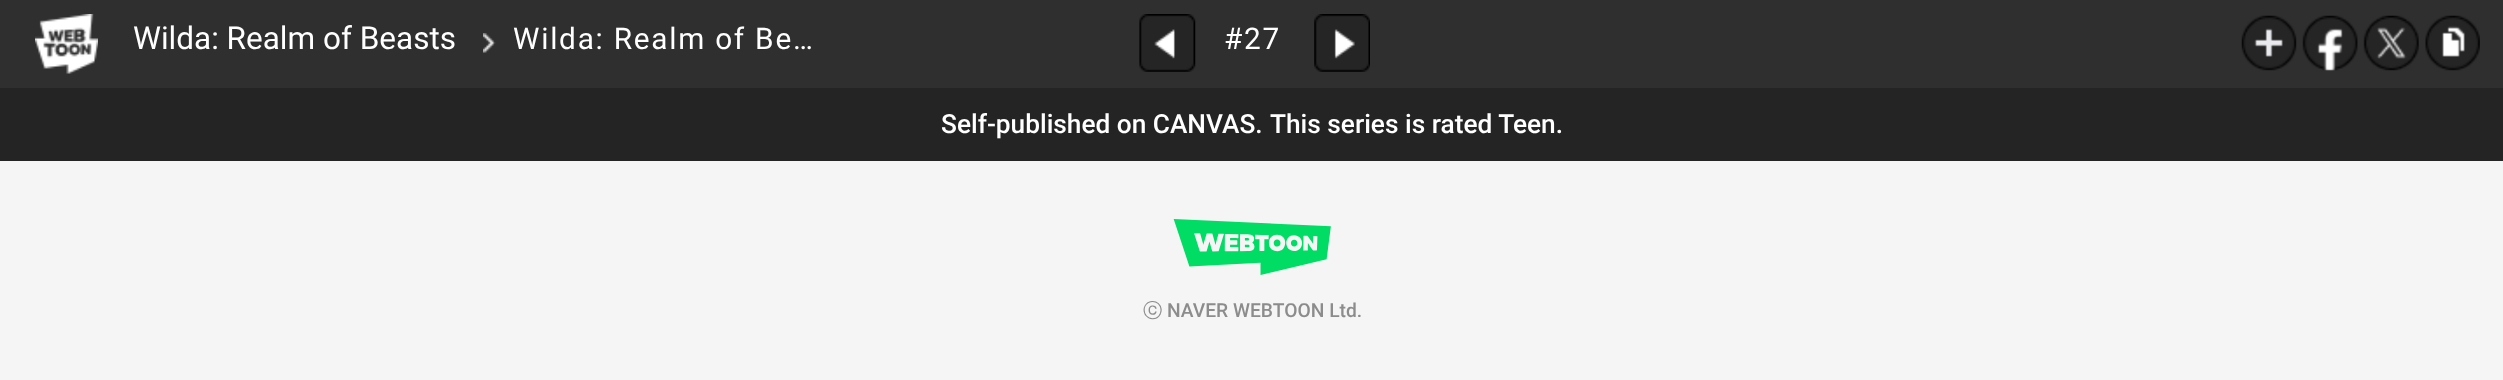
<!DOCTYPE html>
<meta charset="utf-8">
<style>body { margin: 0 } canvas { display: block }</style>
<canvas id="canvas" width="2503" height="380"></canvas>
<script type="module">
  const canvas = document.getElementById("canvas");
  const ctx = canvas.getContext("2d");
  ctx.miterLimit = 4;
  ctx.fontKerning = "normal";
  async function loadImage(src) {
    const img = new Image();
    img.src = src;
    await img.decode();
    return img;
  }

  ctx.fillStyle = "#f5f5f5";
  ctx.fillRect(0, 0, 2503, 380);
  ctx.fillStyle = "#2f2f2f";
  ctx.fillRect(0, 0, 2503, 88);
  ctx.drawImage(await loadImage("img1.png"), 35, 14, 63, 60);
  ctx.font = "31.5px Roboto";
  ctx.fillStyle = "#ffffff";
  ctx.fillText("Wilda: Realm of Beasts", 133, 49);
  ctx.drawImage(await loadImage("img2.png"), 483, 33, 13, 20);
  ctx.letterSpacing = "1.75px";
  ctx.font = "29.75px Roboto";
  ctx.fillText("Wilda: Realm of Be…", 513, 49);
  ctx.drawImage(await loadImage("img3.png"), 1139, 14, 57, 58);
  ctx.fillText("#27", 1224, 49);
  ctx.drawImage(await loadImage("img4.png"), 1314, 14, 56, 58);
  ctx.drawImage(await loadImage("img5.png"), 2241, 15, 56, 56);
  ctx.drawImage(await loadImage("img6.png"), 2302, 15, 56, 56);
  ctx.drawImage(await loadImage("img7.png"), 2363, 15, 56, 56);
  ctx.drawImage(await loadImage("img8.png"), 2425, 15, 55, 56);
  ctx.fillStyle = "#242424";
  ctx.fillRect(0, 88, 2503, 73);
  ctx.letterSpacing = "0px";
  ctx.font = "500 26.25px Roboto";
  ctx.fillStyle = "#ffffff";
  ctx.fillText("Self-published on CANVAS.", 941, 133);
  ctx.fillText("This series is rated Teen.", 1270, 133);
  ctx.drawImage(await loadImage("img9.png"), 1173, 219, 158, 56);
  ctx.font = "500 19.25px WenQuanYi Zen Hei";
  ctx.fillStyle = "#8c8c8c";
  ctx.fillText("ⓒ", 1143, 317);
  ctx.font = "500 19.25px Roboto";
  ctx.fillText("NAVER WEBTOON Ltd.", 1167, 317);
</script>
